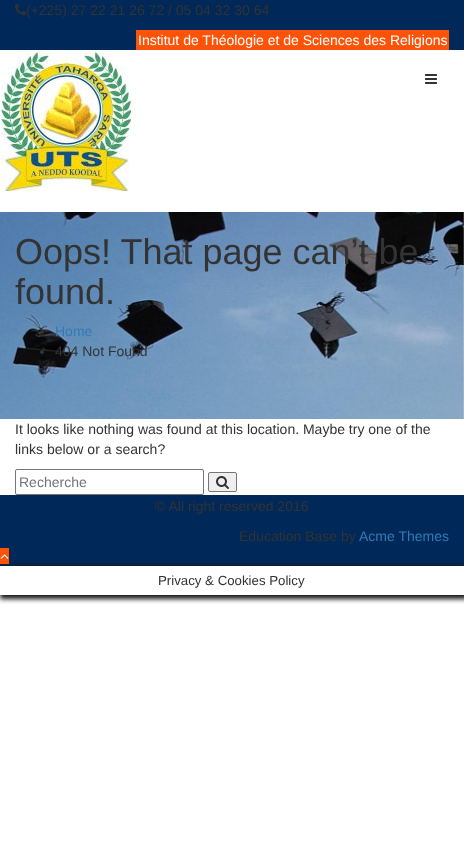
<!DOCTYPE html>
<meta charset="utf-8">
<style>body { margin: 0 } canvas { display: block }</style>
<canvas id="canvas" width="464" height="847"></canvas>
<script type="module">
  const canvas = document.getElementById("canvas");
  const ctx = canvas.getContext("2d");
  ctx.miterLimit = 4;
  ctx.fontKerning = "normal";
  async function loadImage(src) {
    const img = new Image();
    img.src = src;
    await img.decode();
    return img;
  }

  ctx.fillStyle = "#ffffff";
  ctx.fillRect(0, 0, 464, 847);
  ctx.fillStyle = "#002858";
  ctx.fillRect(0, 0, 464, 50);
  ctx.drawImage(await loadImage("img1.png"), 15, 4, 11, 11);
  ctx.font = "14px Liberation Sans";
  ctx.fillStyle = "#333333";
  ctx.fillText("(+225) 27 22 21 26 72 / 05 04 32 30 64", 26, 15);
  ctx.fillStyle = "#fd5308";
  ctx.fillRect(136, 30, 313, 20);
  ctx.fillStyle = "#ffffff";
  ctx.fillText("Institut de Théologie et de Sciences des Religions", 138, 45);
  ctx.drawImage(await loadImage("img2.png"), 1, 51, 130, 140);
  ctx.drawImage(await loadImage("img3.png"), 425, 74, 12, 10);
  ctx.drawImage(await loadImage("img4.png"), 0, 212, 464, 207);
  ctx.font = "36px Liberation Sans";
  ctx.fillStyle = "#333333";
  ctx.fillText("Oops! That page can’t be", 15, 264);
  ctx.fillText("found.", 15, 304);
  ctx.beginPath();
  ctx.arc(42, 332, 2, 0, Math.PI * 2);
  ctx.fill();
  ctx.font = "14px Liberation Sans";
  ctx.fillStyle = "#337ab7";
  ctx.fillText("Home", 55, 336);
  ctx.fillStyle = "#333333";
  ctx.beginPath();
  ctx.arc(42, 352, 2, 0, Math.PI * 2);
  ctx.fill();
  ctx.fillText("404 Not Found", 55, 356);
  ctx.fillText("It looks like nothing was found at this location. Maybe try one of the", 15, 434);
  ctx.fillText("links below or a search?", 15, 454);
  ctx.beginPath();
  ctx.roundRect(15.5, 469.5, 188, 25, 1.5);
  ctx.strokeStyle = "#767676";
  ctx.stroke();
  ctx.fillStyle = "#757575";
  ctx.fillText("Recherche", 19, 487);
  ctx.fillStyle = "#efefef";
  ctx.beginPath();
  ctx.roundRect(208.5, 472.5, 28, 19, 1.5);
  ctx.fill();
  ctx.stroke();
  ctx.drawImage(await loadImage("img5.png"), 216, 476, 13, 13);
  ctx.fillStyle = "#002858";
  ctx.fillRect(0, 495, 464, 71);
  ctx.fillStyle = "#333333";
  ctx.fillText("© All right reserved 2016", 155, 511);
  ctx.fillText("Education Base by", 239, 541);
  ctx.fillStyle = "#337ab7";
  ctx.fillText("Acme Themes", 359, 541);
  ctx.save();
  ctx.beginPath();
  ctx.moveTo(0, 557);
  ctx.lineTo(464, 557);
  ctx.lineTo(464, 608);
  ctx.lineTo(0, 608);
  ctx.closePath();
  ctx.moveTo(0, 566);
  ctx.lineTo(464, 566);
  ctx.lineTo(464, 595);
  ctx.lineTo(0, 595);
  ctx.closePath();
  ctx.clip("evenodd");
  ctx.fillStyle = "#161616";
  ctx.filter = "blur(2.5px)";
  ctx.beginPath();
  ctx.rect(0, 566, 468, 33);
  ctx.fill();
  ctx.filter = "none";
  ctx.restore();
  ctx.fillStyle = "#fd5308";
  ctx.fillRect(0, 548, 9, 16);
  ctx.drawImage(await loadImage("img6.png"), 0, 554, 9, 5);
  ctx.font = "13.25px Liberation Sans";
  ctx.fillStyle = "#333333";
  ctx.fillText("Privacy & Cookies Policy", 158, 585);
</script>
